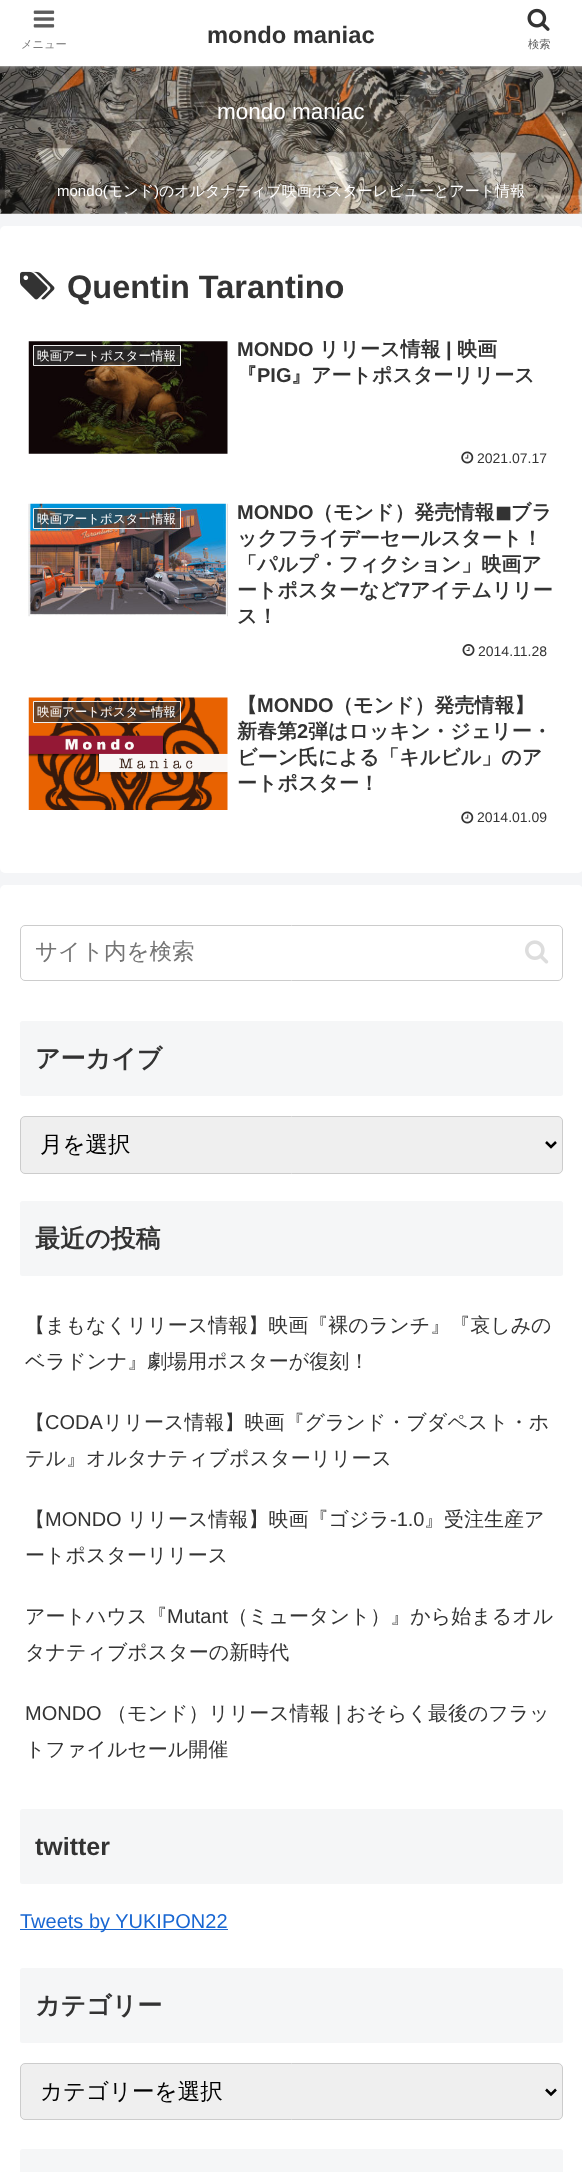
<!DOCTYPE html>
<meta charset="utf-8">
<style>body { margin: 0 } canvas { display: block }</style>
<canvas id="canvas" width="582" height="2172"></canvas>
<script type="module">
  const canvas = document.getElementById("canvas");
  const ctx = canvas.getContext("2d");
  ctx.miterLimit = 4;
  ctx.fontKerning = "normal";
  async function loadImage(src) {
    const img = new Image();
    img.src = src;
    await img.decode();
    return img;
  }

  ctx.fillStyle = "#f4f5f7";
  ctx.fillRect(0, 0, 582, 2172);
  ctx.drawImage(await loadImage("img3.png"), 0, 66, 582, 148);
  ctx.fillStyle = "#a9a9a9";
  ctx.filter = "blur(3px)";
  ctx.beginPath();
  ctx.rect(0, 0, 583, 66);
  ctx.fill();
  ctx.filter = "none";
  ctx.fillStyle = "#ffffff";
  ctx.fillRect(0, 0, 582, 66);
  ctx.drawImage(await loadImage("img1.png"), 33, 10, 22, 18);
  ctx.font = "500 11.25px WenQuanYi Zen Hei";
  ctx.fillStyle = "#7c7c7c";
  ctx.fillText("メニュー", 21, 48);
  ctx.font = "bold 23.75px Liberation Sans";
  ctx.fillStyle = "#333333";
  ctx.fillText("mondo maniac", 207, 43);
  ctx.drawImage(await loadImage("img2.png"), 527, 8, 23, 23);
  ctx.font = "500 11.25px WenQuanYi Zen Hei";
  ctx.fillStyle = "#5c5c5c";
  ctx.fillText("検索", 528, 48);
  ctx.font = "22.5px Liberation Sans";
  ctx.fillStyle = "#ffffff";
  ctx.fillText("mondo maniac", 217, 119);
  ctx.font = "15px Liberation Sans";
  ctx.fillText("mondo(", 57, 196);
  ctx.font = "500 15px WenQuanYi Zen Hei";
  ctx.fillText("モンド", 108, 196);
  ctx.font = "15px Liberation Sans";
  ctx.fillText(")", 154, 196);
  ctx.font = "500 15px WenQuanYi Zen Hei";
  ctx.fillText("のオルタナティブ映画ポスターレビューとアート情報", 159, 196);
  ctx.beginPath();
  ctx.roundRect(0, 226, 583, 647, 5);
  ctx.fill();
  ctx.drawImage(await loadImage("img4.png"), 20, 271, 35, 29);
  ctx.font = "bold 32.5px Liberation Sans";
  ctx.fillStyle = "#333333";
  ctx.fillText("Quentin Tarantino", 67, 298);
  ctx.drawImage(await loadImage("img5.png"), 28, 341, 200, 113);
  ctx.fillStyle = "rgba(51, 51, 51, 0.7)";
  ctx.beginPath();
  ctx.rect(33.5, 345.5, 147, 20);
  ctx.fill();
  ctx.strokeStyle = "#eeeeee";
  ctx.stroke();
  ctx.font = "500 12.5px WenQuanYi Zen Hei";
  ctx.fillStyle = "#ffffff";
  ctx.fillText("映画アートポスター情報", 37, 360);
  ctx.font = "bold 20px Liberation Sans";
  ctx.fillStyle = "#333333";
  ctx.fillText("MONDO", 237, 356);
  ctx.font = "bold 20px WenQuanYi Zen Hei";
  ctx.fillText("リリース情報", 319, 356);
  ctx.font = "bold 20px Liberation Sans";
  ctx.fillText("|", 446, 356);
  ctx.font = "bold 20px WenQuanYi Zen Hei";
  ctx.fillText("映画", 457, 356);
  ctx.fillText("『", 237, 382);
  ctx.font = "bold 20px Liberation Sans";
  ctx.fillText("PIG", 257, 382);
  ctx.font = "bold 20px WenQuanYi Zen Hei";
  ctx.fillText("』アートポスターリリース", 291, 382);
  ctx.drawImage(await loadImage("img6.png"), 461, 451, 13, 13);
  ctx.font = "14px Liberation Sans";
  ctx.fillText("2021.07.17", 477, 463);
  ctx.drawImage(await loadImage("img7.png"), 28, 503, 200, 114);
  ctx.fillStyle = "rgba(51, 51, 51, 0.7)";
  ctx.beginPath();
  ctx.rect(33.5, 508.5, 147, 20);
  ctx.fill();
  ctx.stroke();
  ctx.font = "500 12.5px WenQuanYi Zen Hei";
  ctx.fillStyle = "#ffffff";
  ctx.fillText("映画アートポスター情報", 37, 523);
  ctx.font = "bold 20px Liberation Sans";
  ctx.fillStyle = "#333333";
  ctx.fillText("MONDO", 237, 519);
  ctx.font = "bold 20px WenQuanYi Zen Hei";
  ctx.fillText("（モンド）発売情報", 313, 519);
  ctx.font = "bold 20px DejaVu Sans";
  ctx.fillText("◼︎", 495, 519);
  ctx.font = "bold 20px WenQuanYi Zen Hei";
  ctx.fillText("ブラ", 511, 519);
  ctx.fillText("ックフライデーセールスタート！", 237, 545);
  ctx.fillText("「パルプ・フィクション」映画ア", 237, 571);
  ctx.fillText("ートポスターなど", 237, 597);
  ctx.font = "bold 20px Liberation Sans";
  ctx.fillText("7", 399, 597);
  ctx.font = "bold 20px WenQuanYi Zen Hei";
  ctx.fillText("アイテムリリー", 410, 597);
  ctx.fillText("ス！", 237, 623);
  ctx.drawImage(await loadImage("img8.png"), 462, 644, 13, 12);
  ctx.font = "14px Liberation Sans";
  ctx.fillText("2014.11.28", 478, 656);
  ctx.drawImage(await loadImage("img9.png"), 28, 697, 200, 113);
  ctx.fillStyle = "rgba(51, 51, 51, 0.7)";
  ctx.beginPath();
  ctx.rect(33.5, 701.5, 147, 21);
  ctx.fill();
  ctx.stroke();
  ctx.font = "500 12.5px WenQuanYi Zen Hei";
  ctx.fillStyle = "#ffffff";
  ctx.fillText("映画アートポスター情報", 37, 716);
  ctx.font = "bold 20px WenQuanYi Zen Hei";
  ctx.fillStyle = "#333333";
  ctx.fillText("【", 237, 712);
  ctx.font = "bold 20px Liberation Sans";
  ctx.fillText("MONDO", 257, 712);
  ctx.font = "bold 20px WenQuanYi Zen Hei";
  ctx.fillText("（モンド）発売情報】", 333, 712);
  ctx.fillText("新春第", 237, 738);
  ctx.font = "bold 20px Liberation Sans";
  ctx.fillText("2", 297, 738);
  ctx.font = "bold 20px WenQuanYi Zen Hei";
  ctx.fillText("弾はロッキン・ジェリー・", 308, 738);
  ctx.fillText("ビーン氏による「キルビル」のア", 237, 764);
  ctx.fillText("ートポスター！", 237, 790);
  ctx.drawImage(await loadImage("img6.png"), 461, 811, 13, 13);
  ctx.font = "14px Liberation Sans";
  ctx.fillText("2014.01.09", 477, 822);
  ctx.fillStyle = "#ffffff";
  ctx.beginPath();
  ctx.roundRect(0, 885, 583, 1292, 5);
  ctx.fill();
  ctx.beginPath();
  ctx.roundRect(20.5, 925.5, 542, 55, 4.5);
  ctx.strokeStyle = "#cccccc";
  ctx.stroke();
  ctx.font = "500 22.5px WenQuanYi Zen Hei";
  ctx.fillStyle = "#757575";
  ctx.fillText("サイト内を検索", 35, 959);
  ctx.drawImage(await loadImage("img10.png"), 525, 940, 24, 24);
  ctx.fillStyle = "#f5f6f7";
  ctx.beginPath();
  ctx.roundRect(20, 1021, 543, 75, 2.5);
  ctx.fill();
  ctx.font = "bold 25px WenQuanYi Zen Hei";
  ctx.fillStyle = "#333333";
  ctx.fillText("アーカイブ", 35, 1067);
  ctx.fillStyle = "#efefef";
  ctx.beginPath();
  ctx.roundRect(20.5, 1116.5, 542, 57, 4.5);
  ctx.fill();
  ctx.stroke();
  ctx.beginPath();
  ctx.moveTo(546, 1142);
  ctx.lineTo(551, 1147);
  ctx.lineTo(556, 1142);
  ctx.strokeStyle = "#000000";
  ctx.lineWidth = 2.5;
  ctx.stroke();
  ctx.font = "500 22.5px WenQuanYi Zen Hei";
  ctx.fillStyle = "#000000";
  ctx.fillText("月を選択", 40, 1152);
  ctx.fillStyle = "#f5f6f7";
  ctx.beginPath();
  ctx.roundRect(20, 1201, 543, 75, 2.5);
  ctx.fill();
  ctx.font = "bold 25px WenQuanYi Zen Hei";
  ctx.fillStyle = "#333333";
  ctx.fillText("最近の投稿", 35, 1247);
  ctx.font = "500 20px WenQuanYi Zen Hei";
  ctx.fillText("【まもなくリリース情報】映画『裸のランチ』『哀しみの", 25, 1332);
  ctx.fillText("ベラドンナ』劇場用ポスターが復刻！", 25, 1368);
  ctx.fillText("【", 25, 1429);
  ctx.font = "20px Liberation Sans";
  ctx.fillText("CODA", 45, 1429);
  ctx.font = "500 20px WenQuanYi Zen Hei";
  ctx.fillText("リリース情報】映画『グランド・ブダペスト・ホ", 103, 1429);
  ctx.fillText("テル』オルタナティブポスターリリース", 25, 1465);
  ctx.fillText("【", 25, 1526);
  ctx.font = "20px Liberation Sans";
  ctx.fillText("MONDO", 45, 1526);
  ctx.font = "500 20px WenQuanYi Zen Hei";
  ctx.fillText("リリース情報】映画『ゴジラ", 127, 1526);
  ctx.font = "20px Liberation Sans";
  ctx.fillText("-1.0", 390, 1526);
  ctx.font = "500 20px WenQuanYi Zen Hei";
  ctx.fillText("』受注生産ア", 424, 1526);
  ctx.fillText("ートポスターリリース", 25, 1562);
  ctx.fillText("アートハウス『", 25, 1623);
  ctx.font = "20px Liberation Sans";
  ctx.fillText("Mutant", 167, 1623);
  ctx.font = "500 20px WenQuanYi Zen Hei";
  ctx.fillText("（ミュータント）』から始まるオル", 228, 1623);
  ctx.fillText("タナティブポスターの新時代", 25, 1659);
  ctx.font = "20px Liberation Sans";
  ctx.fillText("MONDO", 25, 1720);
  ctx.font = "500 20px WenQuanYi Zen Hei";
  ctx.fillText("（モンド）リリース情報", 107, 1720);
  ctx.font = "20px Liberation Sans";
  ctx.fillText("|", 336, 1720);
  ctx.font = "500 20px WenQuanYi Zen Hei";
  ctx.fillText("おそらく最後のフラッ", 346, 1720);
  ctx.fillText("トファイルセール開催", 25, 1756);
  ctx.fillStyle = "#f5f6f7";
  ctx.beginPath();
  ctx.roundRect(20, 1809, 543, 75, 2.5);
  ctx.fill();
  ctx.font = "bold 25px Liberation Sans";
  ctx.fillStyle = "#333333";
  ctx.fillText("twitter", 35, 1855);
  ctx.fillStyle = "#1967d2";
  ctx.fillRect(20, 1929, 208, 1);
  ctx.font = "20px Liberation Sans";
  ctx.fillText("Tweets by YUKIPON22", 20, 1928);
  ctx.fillStyle = "#f5f6f7";
  ctx.beginPath();
  ctx.roundRect(20, 1968, 543, 75, 2.5);
  ctx.fill();
  ctx.font = "bold 25px WenQuanYi Zen Hei";
  ctx.fillStyle = "#333333";
  ctx.fillText("カテゴリー", 35, 2014);
  ctx.fillStyle = "#efefef";
  ctx.beginPath();
  ctx.roundRect(20.5, 2063.5, 542, 56, 4.5);
  ctx.fill();
  ctx.strokeStyle = "#cccccc";
  ctx.lineWidth = 1;
  ctx.stroke();
  ctx.beginPath();
  ctx.moveTo(546, 2089.5);
  ctx.lineTo(551, 2094.5);
  ctx.lineTo(556, 2089.5);
  ctx.strokeStyle = "#000000";
  ctx.lineWidth = 2.5;
  ctx.stroke();
  ctx.font = "500 22.5px WenQuanYi Zen Hei";
  ctx.fillStyle = "#000000";
  ctx.fillText("カテゴリーを選択", 40, 2099);
  ctx.fillStyle = "#f5f6f7";
  ctx.beginPath();
  ctx.roundRect(20, 2149, 543, 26, 2.5);
  ctx.fill();
</script>
